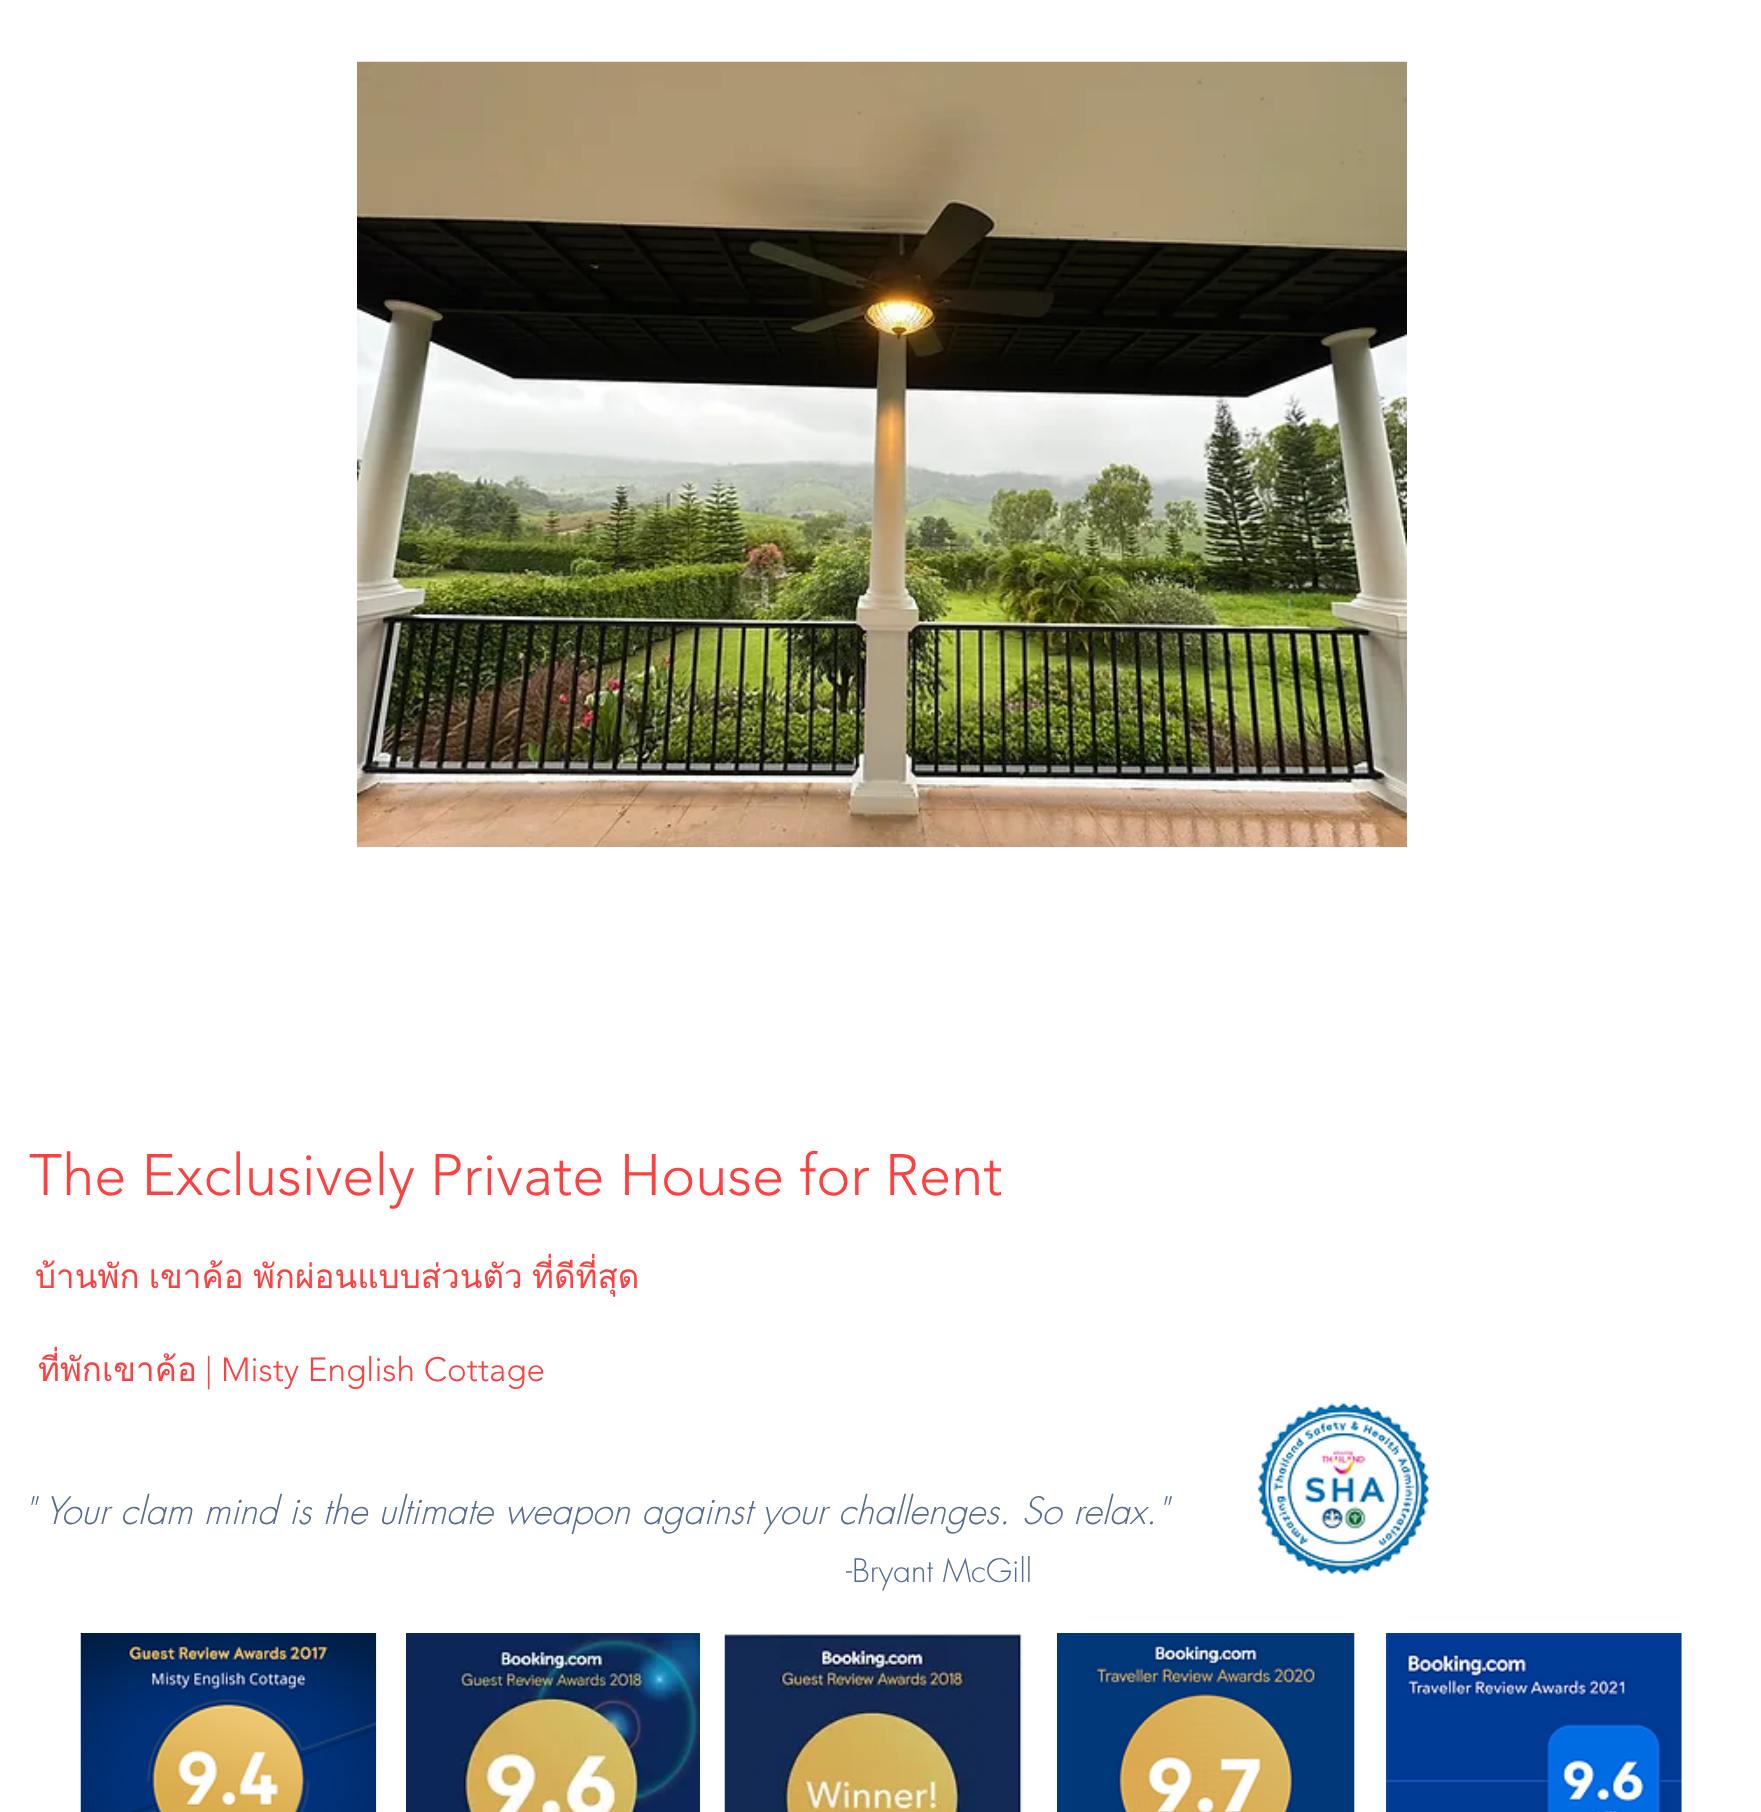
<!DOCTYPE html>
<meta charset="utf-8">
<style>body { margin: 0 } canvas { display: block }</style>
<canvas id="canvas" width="1761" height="1812"></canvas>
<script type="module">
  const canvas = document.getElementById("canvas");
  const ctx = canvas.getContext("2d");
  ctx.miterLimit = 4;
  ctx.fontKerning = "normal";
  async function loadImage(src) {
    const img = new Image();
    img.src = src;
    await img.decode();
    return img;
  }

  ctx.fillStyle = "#ffffff";
  ctx.fillRect(0, 0, 1761, 1812);
  ctx.drawImage(await loadImage("img1.png"), 357, 61, 1050, 787);
  ctx.font = "300 57.75px 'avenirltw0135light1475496'";
  ctx.fillStyle = "#ff4040";
  ctx.fillText("The Exclusively Private House for Rent", 29, 1195);
  ctx.wordSpacing = "-2px";
  ctx.font = "33.25px Loma";
  ctx.fillText("บ้านพัก เขาค้อ พักผ่อนแบบส่วนตัว ที่ดีที่สุด", 35, 1288);
  ctx.wordSpacing = "0px";
  ctx.fillText("ที่พักเขาค้อ", 38, 1381);
  ctx.font = "300 33.25px 'avenirltw0135light1475496'";
  ctx.fillText("| Misty English Cottage", 205, 1381);
  ctx.font = "italic 300 36.75px futura";
  ctx.fillStyle = "#556b8d";
  ctx.fillText("\" Your clam mind is the ultimate weapon against your challenges. So relax.\"", 24, 1524);
  ctx.font = "300 31.5px futura";
  ctx.fillText("-Bryant McGill", 846, 1582);
  ctx.drawImage(await loadImage("img2.png"), 1257, 1403, 174, 173);
  ctx.drawImage(await loadImage("img3.png"), 80, 1633, 297, 179);
  ctx.drawImage(await loadImage("img4.png"), 406, 1633, 294, 179);
  ctx.drawImage(await loadImage("img5.png"), 724, 1633, 299, 179);
  ctx.drawImage(await loadImage("img6.png"), 1057, 1633, 298, 179);
  ctx.drawImage(await loadImage("img7.png"), 1386, 1633, 296, 179);
</script>
